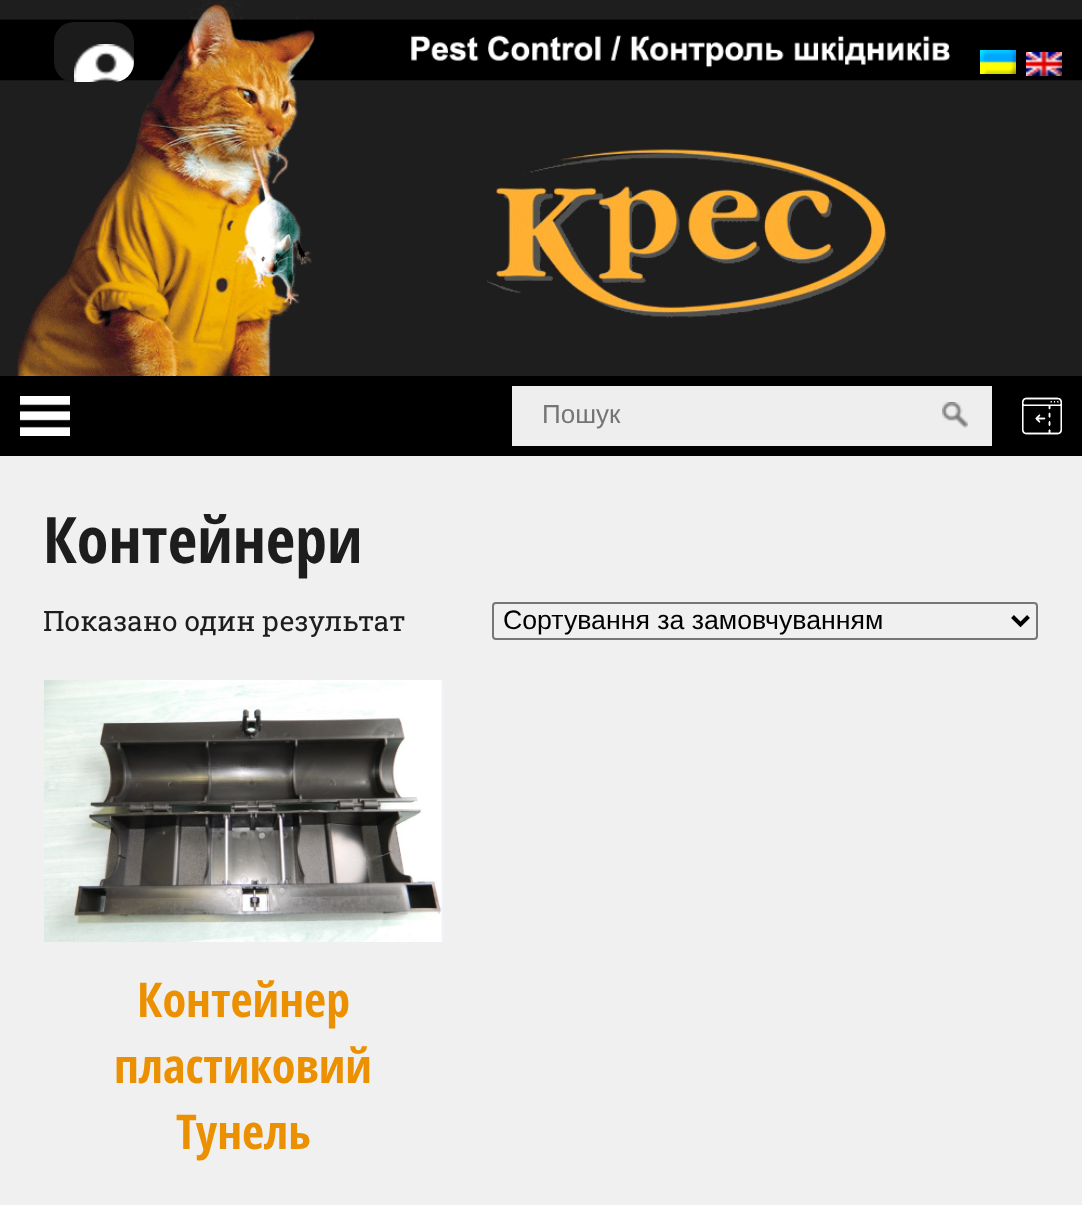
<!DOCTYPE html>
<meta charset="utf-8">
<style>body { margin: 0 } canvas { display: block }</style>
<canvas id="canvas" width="1082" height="1205"></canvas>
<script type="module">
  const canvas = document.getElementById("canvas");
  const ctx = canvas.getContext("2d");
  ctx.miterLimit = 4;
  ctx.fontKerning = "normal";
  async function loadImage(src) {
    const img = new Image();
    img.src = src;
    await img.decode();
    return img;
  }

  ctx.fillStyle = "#f0f0f0";
  ctx.fillRect(0, 0, 1082, 1205);
  ctx.fillStyle = "#000000";
  ctx.fillRect(0, 376, 1082, 80);
  ctx.drawImage(await loadImage("img2.png"), 0, 0, 1082, 376);
  ctx.fillStyle = "#1b1b1b";
  ctx.beginPath();
  ctx.roundRect(54, 22, 80, 60, 20);
  ctx.fill();
  ctx.drawImage(await loadImage("img1.png"), 74, 44, 60, 38);
  ctx.drawImage(await loadImage("img3.png"), 980, 50, 36, 24);
  ctx.drawImage(await loadImage("img4.png"), 1026, 52, 36, 24);
  ctx.drawImage(await loadImage("img5.png"), 20, 396, 50, 40);
  ctx.fillStyle = "#eeeeee";
  ctx.fillRect(512, 386, 480, 60);
  ctx.font = "26px Liberation Sans";
  ctx.fillStyle = "#757575";
  ctx.fillText("Пошук", 542, 423);
  ctx.drawImage(await loadImage("img6.png"), 942, 402, 26, 26);
  ctx.drawImage(await loadImage("img7.png"), 1022, 397, 40, 38);
  ctx.font = "bold 64px Open Sans Condensed";
  ctx.fillStyle = "#1d1d1d";
  ctx.fillText("Контейнери", 43, 563);
  ctx.font = "28px Roboto Slab";
  ctx.fillText("Показано один результат", 43, 631);
  ctx.beginPath();
  ctx.roundRect(493, 603, 544, 36, 3);
  ctx.strokeStyle = "#767676";
  ctx.lineWidth = 2;
  ctx.stroke();
  ctx.beginPath();
  ctx.moveTo(1012.5, 616.5);
  ctx.lineTo(1020.5, 624.5);
  ctx.lineTo(1028.5, 616.5);
  ctx.strokeStyle = "#000000";
  ctx.lineWidth = 4;
  ctx.stroke();
  ctx.font = "26.7px Liberation Sans";
  ctx.fillStyle = "#000000";
  ctx.fillText("Сортування за замовчуванням", 503, 629);
  ctx.drawImage(await loadImage("img8.png"), 44, 680, 400, 262);
  ctx.font = "bold 48px Open Sans Condensed";
  ctx.fillStyle = "#eb9000";
  ctx.fillText("Контейнер", 137, 1017);
  ctx.fillText("пластиковий", 114, 1083);
  ctx.fillText("Тунель", 176, 1149);
</script>
